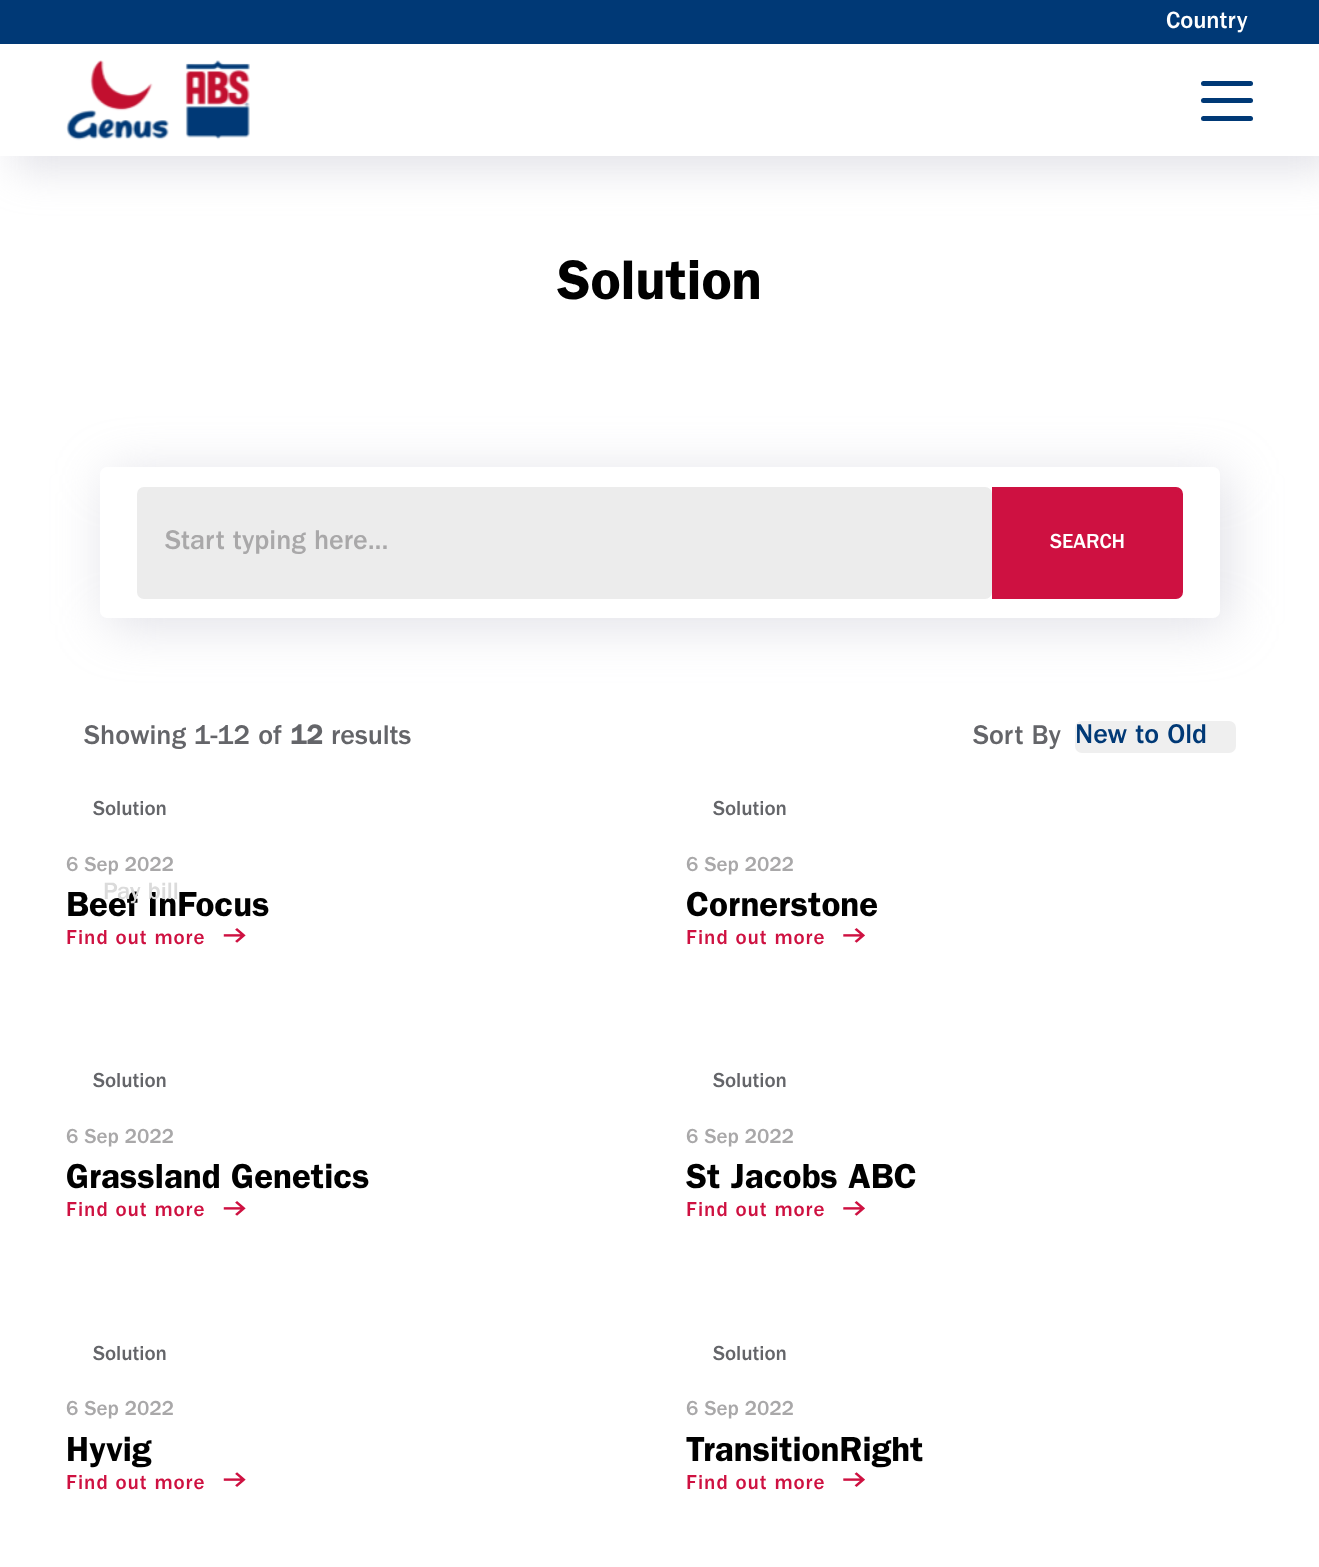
<!DOCTYPE html>
<meta charset="utf-8">
<style>body { margin: 0 } canvas { display: block }</style>
<canvas id="canvas" width="1319" height="1567"></canvas>
<script type="module">
  const canvas = document.getElementById("canvas");
  const ctx = canvas.getContext("2d");
  ctx.miterLimit = 4;
  ctx.fontKerning = "normal";
  async function loadImage(src) {
    const img = new Image();
    img.src = src;
    await img.decode();
    return img;
  }

  ctx.fillStyle = "#ffffff";
  ctx.fillRect(0, 0, 1319, 1567);
  ctx.fillStyle = "rgba(174, 174, 192, 0.36)";
  ctx.filter = "blur(21px)";
  ctx.beginPath();
  ctx.rect(14, 14, 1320, 156);
  ctx.fill();
  ctx.filter = "none";
  ctx.fillStyle = "#ffffff";
  ctx.fillRect(0, 44, 1319, 112);
  ctx.fillStyle = "#003976";
  ctx.fillRect(0, 0, 1319, 44);
  ctx.font = "500 24.5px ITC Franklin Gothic";
  ctx.fillStyle = "#ffffff";
  ctx.fillText("Country", 1166, 28);
  ctx.drawImage(await loadImage("img1.png"), 66, 60, 184, 81);
  ctx.fillStyle = "#003976";
  ctx.beginPath();
  ctx.roundRect(1201, 98, 52, 5, 2.5);
  ctx.fill();
  ctx.beginPath();
  ctx.roundRect(1201, 81, 52, 5, 2.5);
  ctx.fill();
  ctx.beginPath();
  ctx.roundRect(1201, 116, 52, 5, 2.5);
  ctx.fill();
  ctx.font = "600 56px ITC Franklin Gothic";
  ctx.fillStyle = "#000000";
  ctx.fillText("Solution", 557, 299);
  ctx.fillStyle = "rgba(174, 174, 192, 0.4)";
  ctx.filter = "blur(26px)";
  ctx.beginPath();
  ctx.roundRect(107, 474, 1120, 151, 7);
  ctx.fill();
  ctx.filter = "none";
  ctx.fillStyle = "#ffffff";
  ctx.beginPath();
  ctx.roundRect(100, 467, 1120, 151, 7);
  ctx.fill();
  ctx.fillStyle = "#ececec";
  ctx.beginPath();
  ctx.roundRect(137, 487, 855, 112, 7);
  ctx.fill();
  ctx.font = "500 28px ITC Franklin Gothic";
  ctx.fillStyle = "#a9a8a9";
  ctx.fillText("Start typing here...", 165, 549);
  ctx.fillStyle = "#ce1141";
  ctx.beginPath();
  ctx.roundRect(994, 489, 187, 108, [0, 5, 5, 0]);
  ctx.fill();
  ctx.strokeStyle = "#ce1141";
  ctx.lineWidth = 4;
  ctx.stroke();
  ctx.font = "500 21px ITC Franklin Gothic";
  ctx.fillStyle = "#ffffff";
  ctx.fillText("SEARCH", 1050, 548);
  ctx.font = "500 28px ITC Franklin Gothic";
  ctx.fillStyle = "#646569";
  ctx.fillText("Showing 1-12 of", 84, 744);
  ctx.font = "bold 28px ITC Franklin Gothic";
  ctx.fillText("12", 290, 744);
  ctx.font = "500 28px ITC Franklin Gothic";
  ctx.fillText("results", 331, 744);
  ctx.fillText("Sort By", 973, 744);
  ctx.fillStyle = "#efefef";
  ctx.beginPath();
  ctx.roundRect(1075, 721, 161, 32, 7);
  ctx.fill();
  ctx.fillStyle = "#003976";
  ctx.fillText("New to Old", 1075, 743);
  ctx.font = "500 21px ITC Franklin Gothic";
  ctx.fillStyle = "#646569";
  ctx.fillText("Solution", 93, 815);
  ctx.fillStyle = "#a9a8a9";
  ctx.fillText("6 Sep 2022", 66, 871);
  ctx.font = "600 35px ITC Franklin Gothic";
  ctx.fillStyle = "#000000";
  ctx.fillText("Beef InFocus", 66, 916);
  ctx.letterSpacing = "0.9px";
  ctx.font = "500 21px ITC Franklin Gothic";
  ctx.fillStyle = "#ce1141";
  ctx.fillText("Find out more", 66, 944);
  ctx.drawImage(await loadImage("img2.png"), 223, 928, 23, 15);
  ctx.letterSpacing = "0px";
  ctx.fillStyle = "#646569";
  ctx.fillText("Solution", 713, 815);
  ctx.fillStyle = "#a9a8a9";
  ctx.fillText("6 Sep 2022", 686, 871);
  ctx.font = "600 35px ITC Franklin Gothic";
  ctx.fillStyle = "#000000";
  ctx.fillText("Cornerstone", 686, 916);
  ctx.letterSpacing = "0.9px";
  ctx.font = "500 21px ITC Franklin Gothic";
  ctx.fillStyle = "#ce1141";
  ctx.fillText("Find out more", 686, 944);
  ctx.drawImage(await loadImage("img3.png"), 843, 928, 22, 15);
  ctx.letterSpacing = "0px";
  ctx.fillStyle = "#646569";
  ctx.fillText("Solution", 93, 1087);
  ctx.fillStyle = "#a9a8a9";
  ctx.fillText("6 Sep 2022", 66, 1143);
  ctx.font = "600 35px ITC Franklin Gothic";
  ctx.fillStyle = "#000000";
  ctx.fillText("Grassland Genetics", 66, 1188);
  ctx.letterSpacing = "0.9px";
  ctx.font = "500 21px ITC Franklin Gothic";
  ctx.fillStyle = "#ce1141";
  ctx.fillText("Find out more", 66, 1216);
  ctx.drawImage(await loadImage("img2.png"), 223, 1201, 23, 15);
  ctx.letterSpacing = "0px";
  ctx.fillStyle = "#646569";
  ctx.fillText("Solution", 713, 1087);
  ctx.fillStyle = "#a9a8a9";
  ctx.fillText("6 Sep 2022", 686, 1143);
  ctx.font = "600 35px ITC Franklin Gothic";
  ctx.fillStyle = "#000000";
  ctx.fillText("St Jacobs ABC", 686, 1188);
  ctx.letterSpacing = "0.9px";
  ctx.font = "500 21px ITC Franklin Gothic";
  ctx.fillStyle = "#ce1141";
  ctx.fillText("Find out more", 686, 1216);
  ctx.drawImage(await loadImage("img3.png"), 843, 1201, 22, 15);
  ctx.letterSpacing = "0px";
  ctx.fillStyle = "#646569";
  ctx.fillText("Solution", 93, 1360);
  ctx.fillStyle = "#a9a8a9";
  ctx.fillText("6 Sep 2022", 66, 1415);
  ctx.font = "600 35px ITC Franklin Gothic";
  ctx.fillStyle = "#000000";
  ctx.fillText("Hyvig", 66, 1461);
  ctx.letterSpacing = "0.9px";
  ctx.font = "500 21px ITC Franklin Gothic";
  ctx.fillStyle = "#ce1141";
  ctx.fillText("Find out more", 66, 1489);
  ctx.drawImage(await loadImage("img4.png"), 223, 1472, 23, 15);
  ctx.letterSpacing = "0px";
  ctx.fillStyle = "#646569";
  ctx.fillText("Solution", 713, 1360);
  ctx.fillStyle = "#a9a8a9";
  ctx.fillText("6 Sep 2022", 686, 1415);
  ctx.font = "600 35px ITC Franklin Gothic";
  ctx.fillStyle = "#000000";
  ctx.fillText("TransitionRight", 686, 1461);
  ctx.letterSpacing = "0.9px";
  ctx.font = "500 21px ITC Franklin Gothic";
  ctx.fillStyle = "#ce1141";
  ctx.fillText("Find out more", 686, 1489);
  ctx.drawImage(await loadImage("img5.png"), 843, 1472, 22, 15);
  ctx.letterSpacing = "0px";
  ctx.font = "500 24.5px ITC Franklin Gothic";
  ctx.fillStyle = "#dbdbdb";
  ctx.fillText("Pay bill", 103, 899);
</script>
